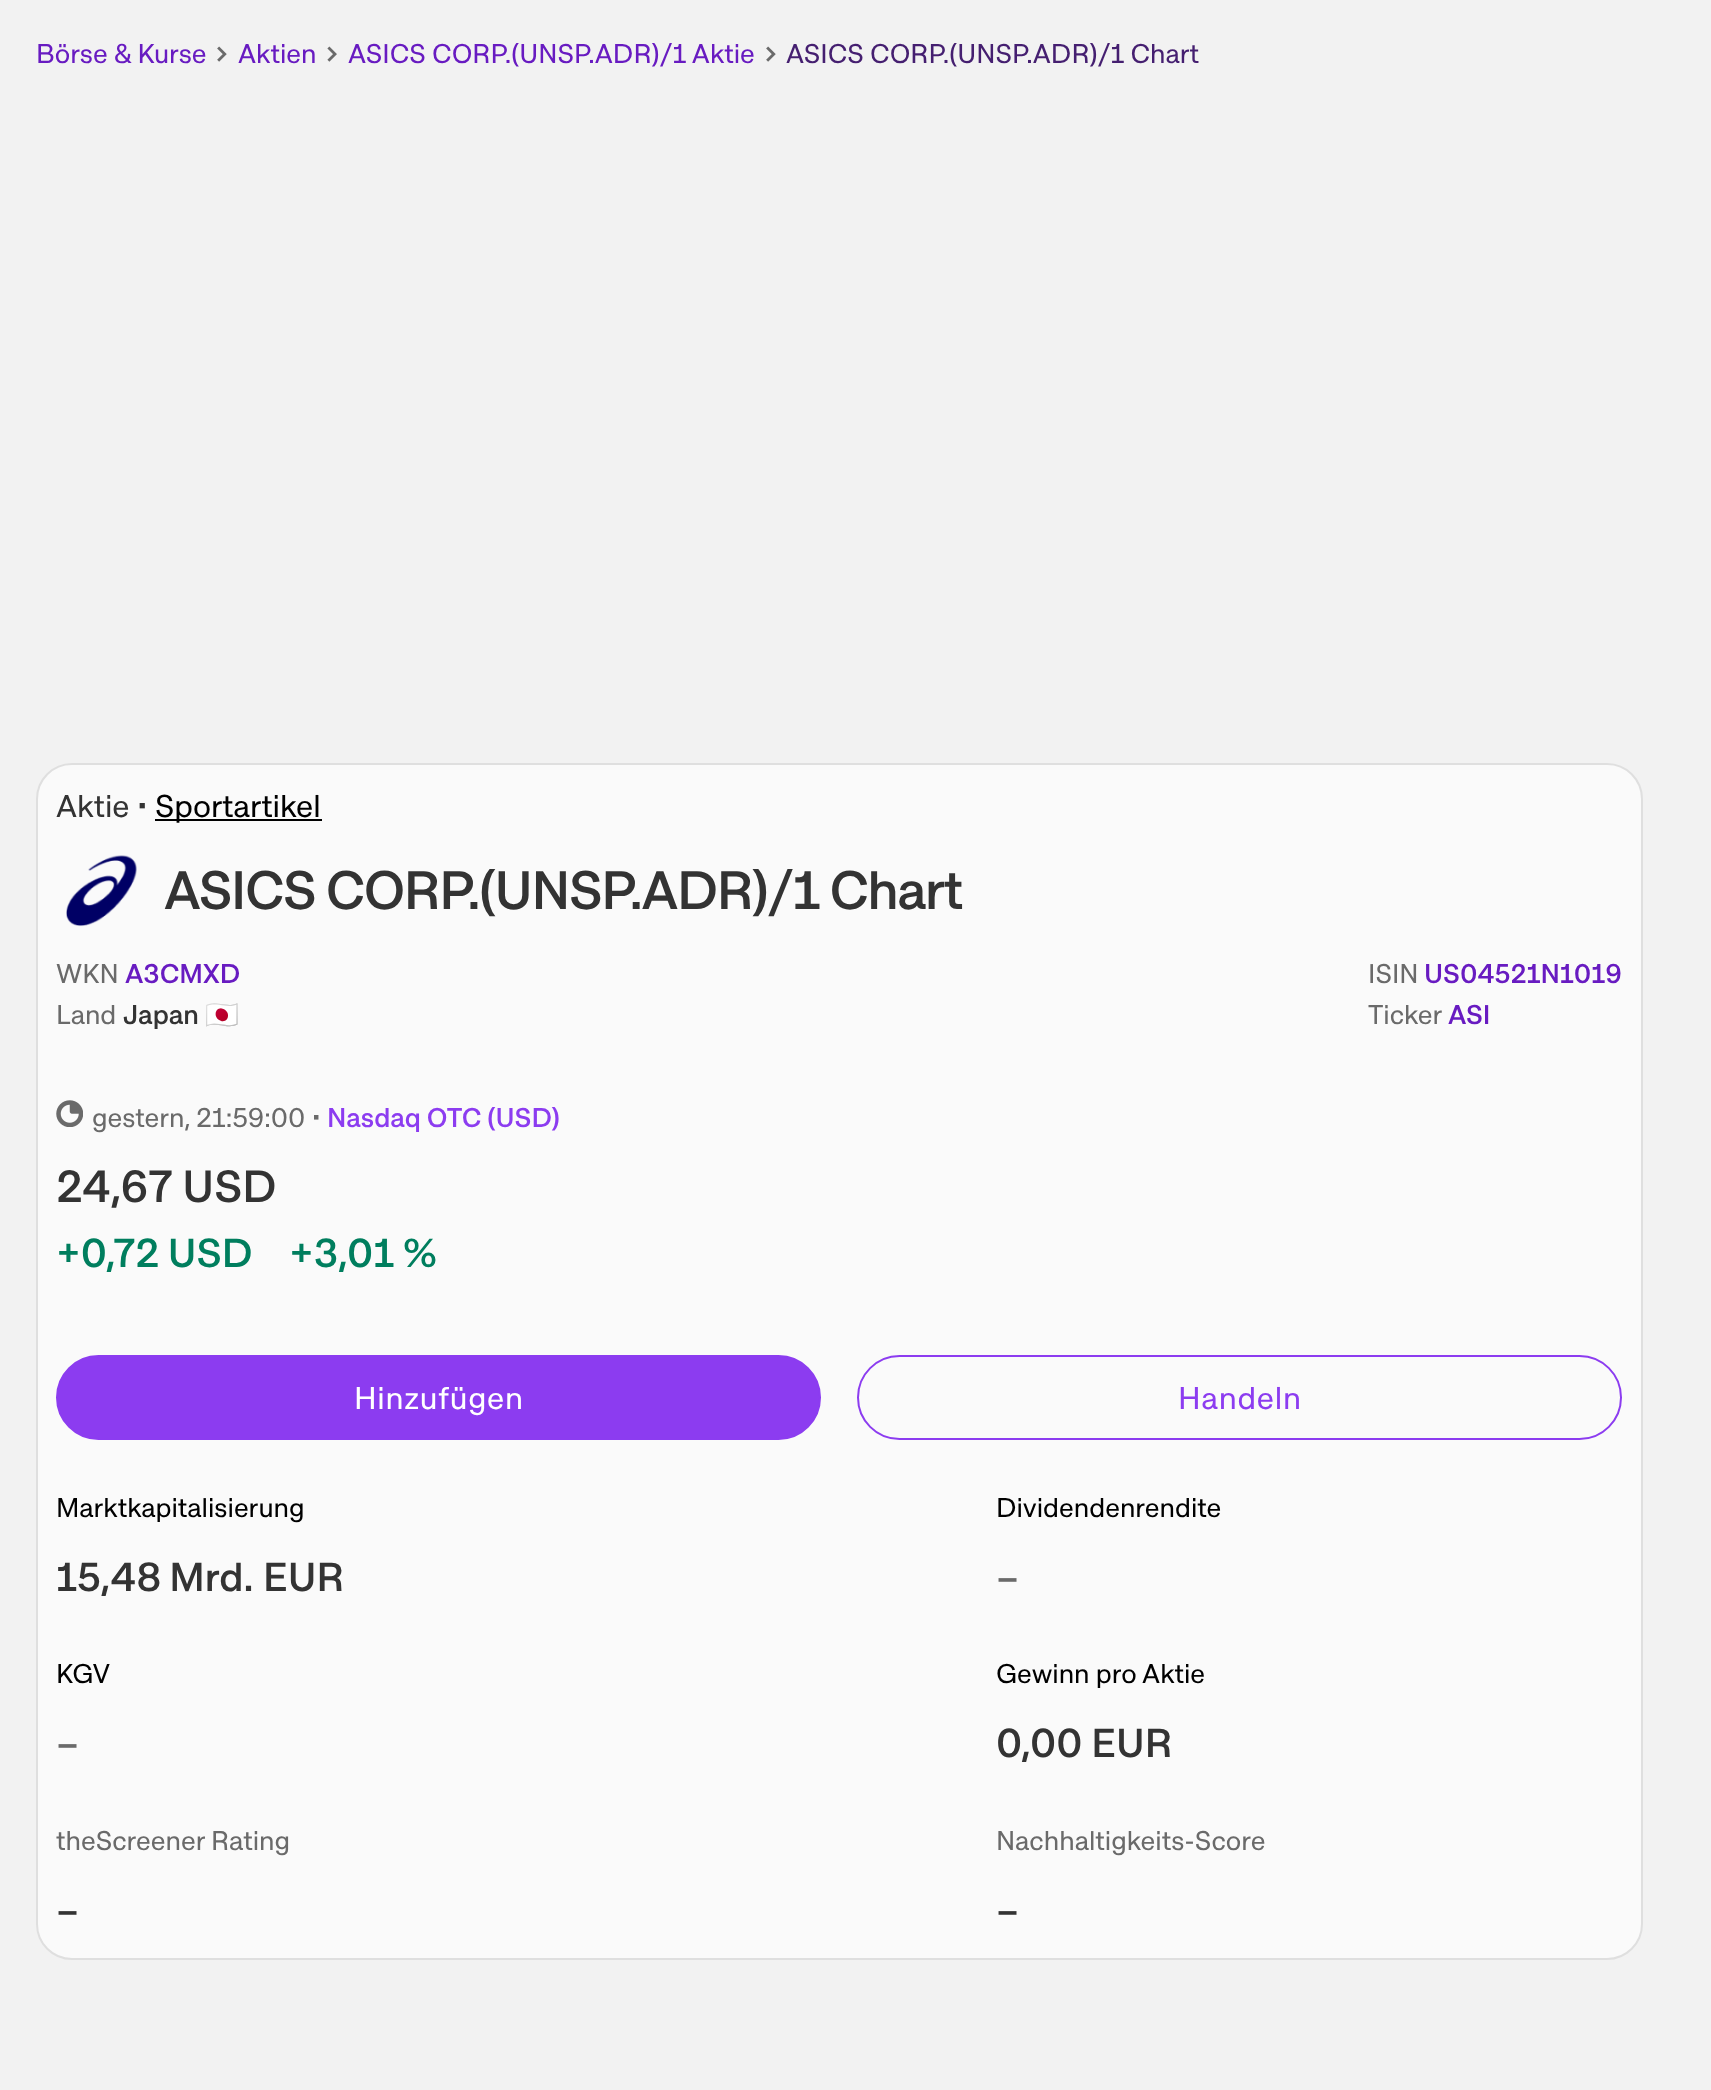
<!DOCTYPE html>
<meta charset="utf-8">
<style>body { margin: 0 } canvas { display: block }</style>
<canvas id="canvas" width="1711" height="2090"></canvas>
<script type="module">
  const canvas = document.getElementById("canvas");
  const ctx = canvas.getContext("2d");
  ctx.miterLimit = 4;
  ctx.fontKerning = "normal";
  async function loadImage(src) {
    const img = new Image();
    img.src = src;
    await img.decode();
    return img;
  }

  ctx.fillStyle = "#f2f2f2";
  ctx.fillRect(0, 0, 1711, 2090);
  ctx.font = "27px 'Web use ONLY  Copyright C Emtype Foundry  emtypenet'";
  ctx.fillStyle = "#681bc1";
  ctx.fillText("Börse & Kurse", 36, 63);
  ctx.drawImage(await loadImage("img1.png"), 217, 46, 10, 16);
  ctx.fillText("Aktien", 238, 63);
  ctx.drawImage(await loadImage("img2.png"), 327, 46, 10, 16);
  ctx.fillText("ASICS CORP.(UNSP.ADR)/1 Aktie", 348, 63);
  ctx.drawImage(await loadImage("img1.png"), 766, 46, 10, 16);
  ctx.fillStyle = "#451f70";
  ctx.fillText("ASICS CORP.(UNSP.ADR)/1 Chart", 786, 63);
  ctx.fillStyle = "#fafafa";
  ctx.beginPath();
  ctx.roundRect(37, 764, 1605, 1195, 35);
  ctx.fill();
  ctx.strokeStyle = "#dfdfdf";
  ctx.lineWidth = 2;
  ctx.stroke();
  ctx.font = "31.5px 'Web use ONLY  Copyright C Emtype Foundry  emtypenet'";
  ctx.fillStyle = "#333333";
  ctx.fillText("Aktie •", 56, 817);
  ctx.fillStyle = "#000000";
  ctx.fillRect(155, 819, 167, 2);
  ctx.fillText("Sportartikel", 155, 817);
  ctx.drawImage(await loadImage("img3.png"), 66, 855, 71, 72);
  ctx.letterSpacing = "-1.35px";
  ctx.font = "500 54px 'Web use ONLY  Copyright C Emtype Foundry  emtypenet'";
  ctx.fillStyle = "#333333";
  ctx.fillText("ASICS CORP.(UNSP.ADR)/1 Chart", 164, 909);
  ctx.letterSpacing = "0px";
  ctx.font = "27px 'Web use ONLY  Copyright C Emtype Foundry  emtypenet'";
  ctx.fillStyle = "#6a6a6a";
  ctx.fillText("WKN", 56, 983);
  ctx.font = "500 27px 'Web use ONLY  Copyright C Emtype Foundry  emtypenet'";
  ctx.fillStyle = "#681bc1";
  ctx.fillText("A3CMXD", 125, 983);
  ctx.font = "27px 'Web use ONLY  Copyright C Emtype Foundry  emtypenet'";
  ctx.fillStyle = "#6a6a6a";
  ctx.fillText("Land", 56, 1024);
  ctx.font = "500 27px 'Web use ONLY  Copyright C Emtype Foundry  emtypenet'";
  ctx.fillStyle = "#333333";
  ctx.fillText("Japan", 123, 1024);
  ctx.font = "27px Noto Color Emoji";
  ctx.fillText("🇯🇵", 205, 1024);
  ctx.font = "27px 'Web use ONLY  Copyright C Emtype Foundry  emtypenet'";
  ctx.fillStyle = "#6a6a6a";
  ctx.fillText("ISIN", 1368, 983);
  ctx.font = "500 27px 'Web use ONLY  Copyright C Emtype Foundry  emtypenet'";
  ctx.fillStyle = "#681bc1";
  ctx.fillText("US04521N1019", 1424, 983);
  ctx.font = "27px 'Web use ONLY  Copyright C Emtype Foundry  emtypenet'";
  ctx.fillStyle = "#6a6a6a";
  ctx.fillText("Ticker", 1368, 1024);
  ctx.font = "500 27px 'Web use ONLY  Copyright C Emtype Foundry  emtypenet'";
  ctx.fillStyle = "#681bc1";
  ctx.fillText("ASI", 1448, 1024);
  ctx.drawImage(await loadImage("img4.png"), 56, 1100, 27, 27);
  ctx.font = "27px 'Web use ONLY  Copyright C Emtype Foundry  emtypenet'";
  ctx.fillStyle = "#6a6a6a";
  ctx.fillText("gestern, 21:59:00 •", 92, 1127);
  ctx.font = "500 27px 'Web use ONLY  Copyright C Emtype Foundry  emtypenet'";
  ctx.fillStyle = "#8c3cf0";
  ctx.fillText("Nasdaq OTC (USD)", 327, 1127);
  ctx.font = "500 45px 'Web use ONLY  Copyright C Emtype Foundry  emtypenet'";
  ctx.fillStyle = "#333333";
  ctx.fillText("24,67 USD", 56, 1202);
  ctx.font = "500 40.5px 'Web use ONLY  Copyright C Emtype Foundry  emtypenet'";
  ctx.fillStyle = "#007e5e";
  ctx.fillText("+0,72 USD", 56, 1267);
  ctx.fillText("+3,01 %", 289, 1267);
  ctx.fillStyle = "#8c3cf0";
  ctx.beginPath();
  ctx.roundRect(57, 1356, 763, 83, 41.5);
  ctx.fill();
  ctx.strokeStyle = "#8c3cf0";
  ctx.stroke();
  ctx.letterSpacing = "0.75px";
  ctx.font = "31.5px 'Web use ONLY  Copyright C Emtype Foundry  emtypenet'";
  ctx.fillStyle = "#ffffff";
  ctx.fillText("Hinzufügen", 354, 1409);
  ctx.beginPath();
  ctx.roundRect(858, 1356, 763, 83, 41.5);
  ctx.stroke();
  ctx.fillStyle = "#8c3cf0";
  ctx.fillText("Handeln", 1178, 1409);
  ctx.letterSpacing = "0px";
  ctx.font = "27px 'Web use ONLY  Copyright C Emtype Foundry  emtypenet'";
  ctx.fillStyle = "#000000";
  ctx.fillText("Marktkapitalisierung", 56, 1517);
  ctx.wordSpacing = "-1px";
  ctx.font = "500 40.5px 'Web use ONLY  Copyright C Emtype Foundry  emtypenet'";
  ctx.fillStyle = "#333333";
  ctx.fillText("15,48 Mrd.", 56, 1591);
  ctx.wordSpacing = "0px";
  ctx.fillText("EUR", 263, 1591);
  ctx.font = "27px 'Web use ONLY  Copyright C Emtype Foundry  emtypenet'";
  ctx.fillStyle = "#000000";
  ctx.fillText("Dividendenrendite", 996, 1517);
  ctx.font = "500 40.5px 'Web use ONLY  Copyright C Emtype Foundry  emtypenet'";
  ctx.fillStyle = "#6a6a6a";
  ctx.fillText("–", 996, 1591);
  ctx.font = "27px 'Web use ONLY  Copyright C Emtype Foundry  emtypenet'";
  ctx.fillStyle = "#000000";
  ctx.fillText("KGV", 56, 1683);
  ctx.font = "500 40.5px 'Web use ONLY  Copyright C Emtype Foundry  emtypenet'";
  ctx.fillStyle = "#6a6a6a";
  ctx.fillText("–", 56, 1757);
  ctx.font = "27px 'Web use ONLY  Copyright C Emtype Foundry  emtypenet'";
  ctx.fillStyle = "#000000";
  ctx.fillText("Gewinn pro Aktie", 996, 1683);
  ctx.font = "500 40.5px 'Web use ONLY  Copyright C Emtype Foundry  emtypenet'";
  ctx.fillStyle = "#333333";
  ctx.fillText("0,00 EUR", 996, 1757);
  ctx.font = "27px 'Web use ONLY  Copyright C Emtype Foundry  emtypenet'";
  ctx.fillStyle = "#6a6a6a";
  ctx.fillText("theScreener Rating", 56, 1850);
  ctx.font = "500 40.5px 'Web use ONLY  Copyright C Emtype Foundry  emtypenet'";
  ctx.fillStyle = "#333333";
  ctx.fillText("–", 56, 1924);
  ctx.font = "27px 'Web use ONLY  Copyright C Emtype Foundry  emtypenet'";
  ctx.fillStyle = "#6a6a6a";
  ctx.fillText("Nachhaltigkeits-Score", 996, 1850);
  ctx.font = "500 40.5px 'Web use ONLY  Copyright C Emtype Foundry  emtypenet'";
  ctx.fillStyle = "#333333";
  ctx.fillText("–", 996, 1924);
</script>
